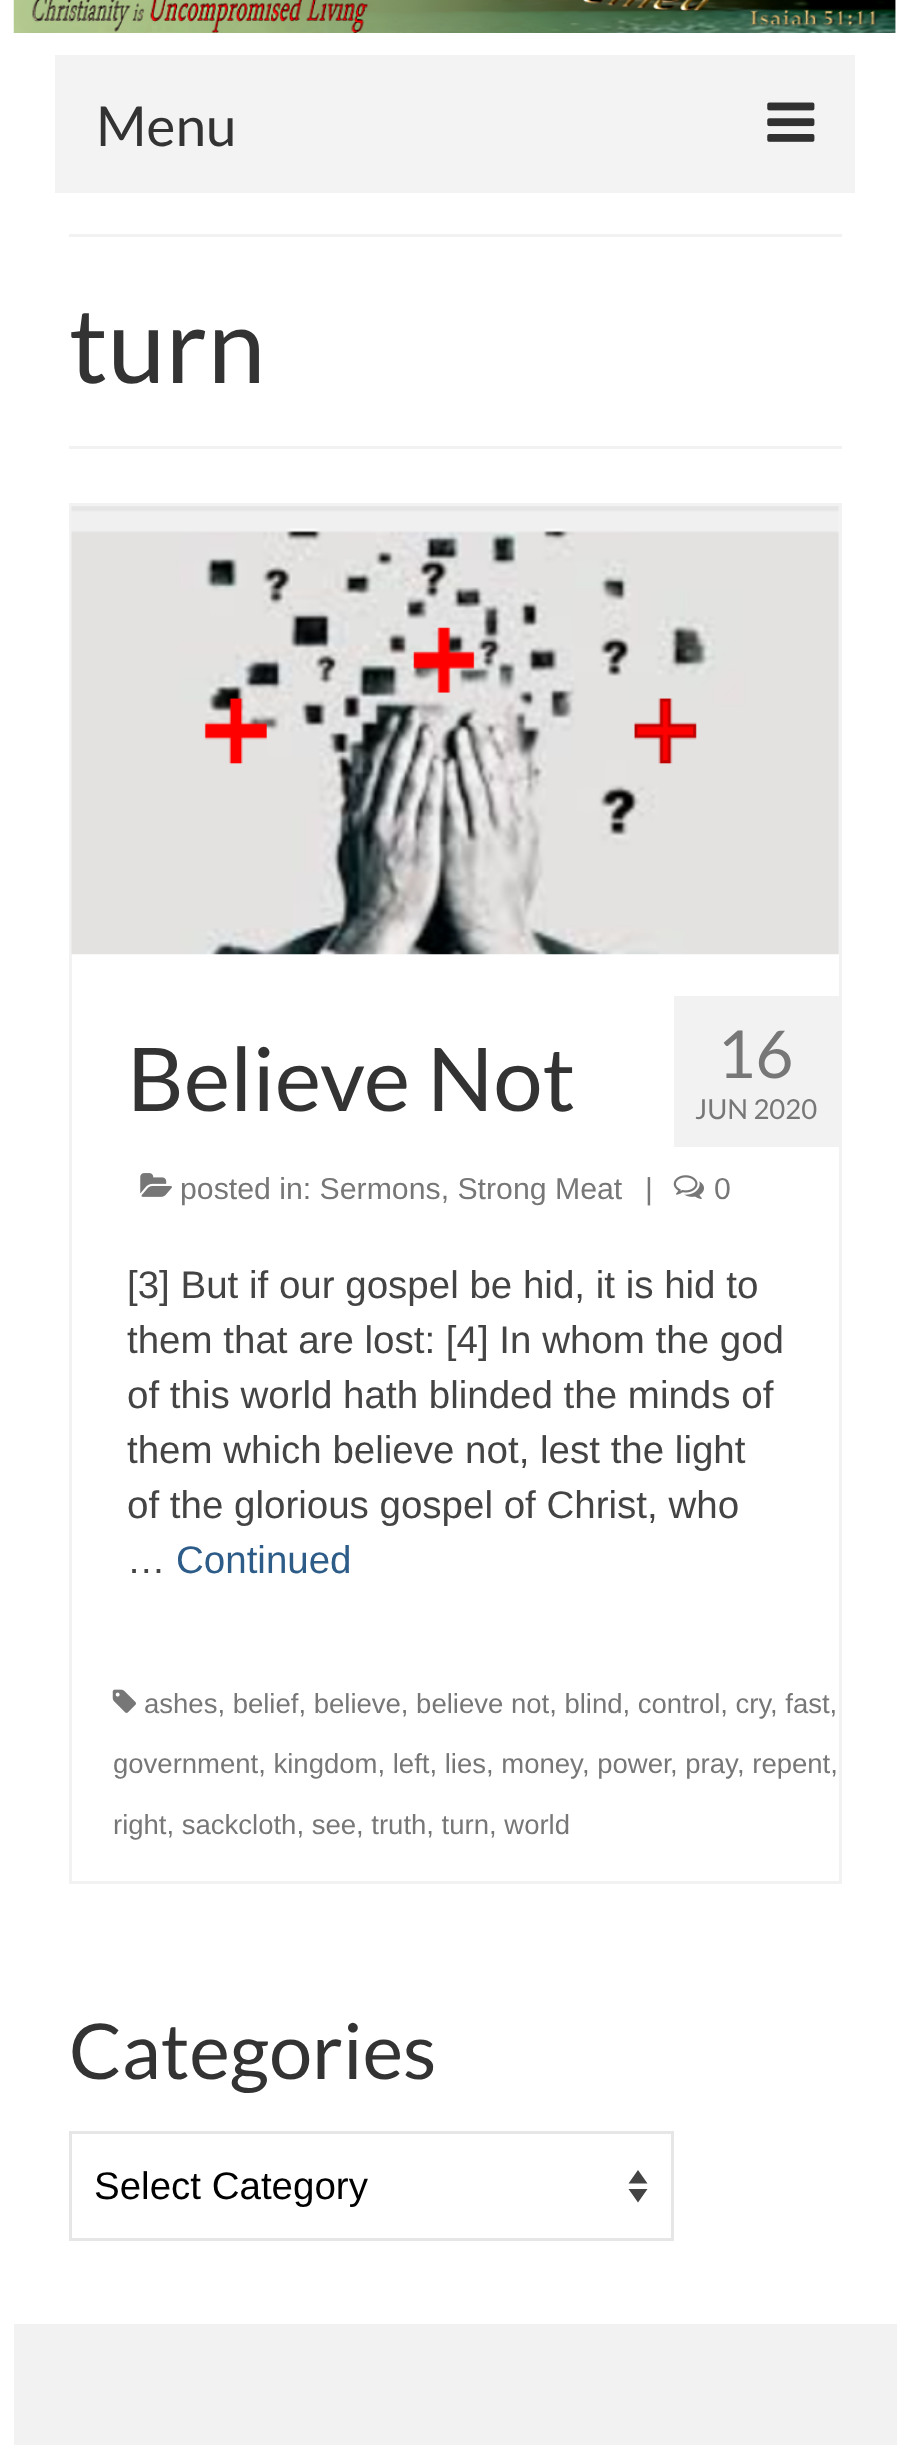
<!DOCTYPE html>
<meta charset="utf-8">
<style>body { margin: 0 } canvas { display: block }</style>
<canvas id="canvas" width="909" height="2445"></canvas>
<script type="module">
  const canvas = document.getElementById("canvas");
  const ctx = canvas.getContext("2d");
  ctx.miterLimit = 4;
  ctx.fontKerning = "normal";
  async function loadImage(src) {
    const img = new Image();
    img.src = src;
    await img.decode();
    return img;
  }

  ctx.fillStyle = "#ffffff";
  ctx.fillRect(0, 0, 909, 2445);
  ctx.drawImage(await loadImage("img1.png"), 13, 0, 883, 33);
  ctx.fillStyle = "#f3f3f3";
  ctx.fillRect(55, 55, 800, 138);
  ctx.font = "55px Lato";
  ctx.fillStyle = "#333333";
  ctx.fillText("Menu", 96, 146);
  ctx.drawImage(await loadImage("img2.png"), 767, 102, 48, 40);
  ctx.fillStyle = "#f2f2f2";
  ctx.fillRect(69, 234, 773, 3);
  ctx.fillRect(69, 446, 773, 3);
  ctx.font = "104px Lato";
  ctx.fillStyle = "#333333";
  ctx.fillText("turn", 69, 383);
  ctx.strokeStyle = "#f2f2f2";
  ctx.lineWidth = 3;
  ctx.strokeRect(70.5, 504.5, 770, 1378);
  ctx.drawImage(await loadImage("img3.png"), 71, 506, 768, 449);
  ctx.font = "88px Lato";
  ctx.fillText("Believe Not", 127, 1111);
  ctx.drawImage(await loadImage("img4.png"), 140, 1173, 32, 24);
  ctx.font = "30.25px Liberation Sans";
  ctx.fillStyle = "#777777";
  ctx.fillText("posted in: Sermons, Strong Meat", 180, 1199);
  ctx.fillText("|", 645, 1199);
  ctx.drawImage(await loadImage("img5.png"), 673, 1175, 31, 24);
  ctx.fillText("0", 714, 1199);
  ctx.fillStyle = "#f2f2f2";
  ctx.fillRect(674, 996, 165, 151);
  ctx.font = "66px Lato";
  ctx.fillStyle = "#777777";
  ctx.fillText("16", 717, 1078);
  ctx.font = "27.5px Lato";
  ctx.fillText("JUN 2020", 695, 1119);
  ctx.font = "38.5px Liberation Sans";
  ctx.fillStyle = "#444444";
  ctx.fillText("[3] But if our gospel be hid, it is hid to", 127, 1298);
  ctx.fillText("them that are lost: [4] In whom the god", 127, 1353);
  ctx.fillText("of this world hath blinded the minds of", 127, 1408);
  ctx.fillText("them which believe not, lest the light", 127, 1463);
  ctx.fillText("of the glorious gospel of Christ, who", 127, 1518);
  ctx.fillText("…", 127, 1573);
  ctx.fillStyle = "#2d5c88";
  ctx.fillText("Continued", 176, 1573);
  ctx.drawImage(await loadImage("img6.png"), 112, 1689, 24, 24);
  ctx.font = "27.5px Liberation Sans";
  ctx.fillStyle = "#777777";
  ctx.fillText("ashes, belief, believe, believe not, blind, control, cry", 144, 1713);
  ctx.fillText(", fast,", 770, 1713);
  ctx.fillText("government, kingdom, left, lies, money", 113, 1773);
  ctx.fillText(", power", 582, 1773);
  ctx.fillText(", pray", 670, 1773);
  ctx.fillText(", repent,", 737, 1773);
  ctx.fillText("right, sackcloth, see, truth, turn, world", 113, 1834);
  ctx.font = "77px Lato";
  ctx.fillStyle = "#333333";
  ctx.fillText("Categories", 69, 2079);
  ctx.fillStyle = "#444444";
  ctx.beginPath();
  ctx.moveTo(628.5, 2183.5);
  ctx.lineTo(638, 2170);
  ctx.lineTo(647.5, 2183.5);
  ctx.closePath();
  ctx.moveTo(647.5, 2189);
  ctx.lineTo(638, 2202.5);
  ctx.lineTo(628.5, 2189);
  ctx.closePath();
  ctx.fill();
  ctx.strokeStyle = "#e6e6e6";
  ctx.strokeRect(70.5, 2132.5, 602, 107);
  ctx.font = "38.5px Liberation Sans";
  ctx.fillStyle = "#000000";
  ctx.fillText("Select Category", 94, 2199);
  ctx.fillStyle = "#f2f2f2";
  ctx.fillRect(14, 2324, 883, 121);
</script>
